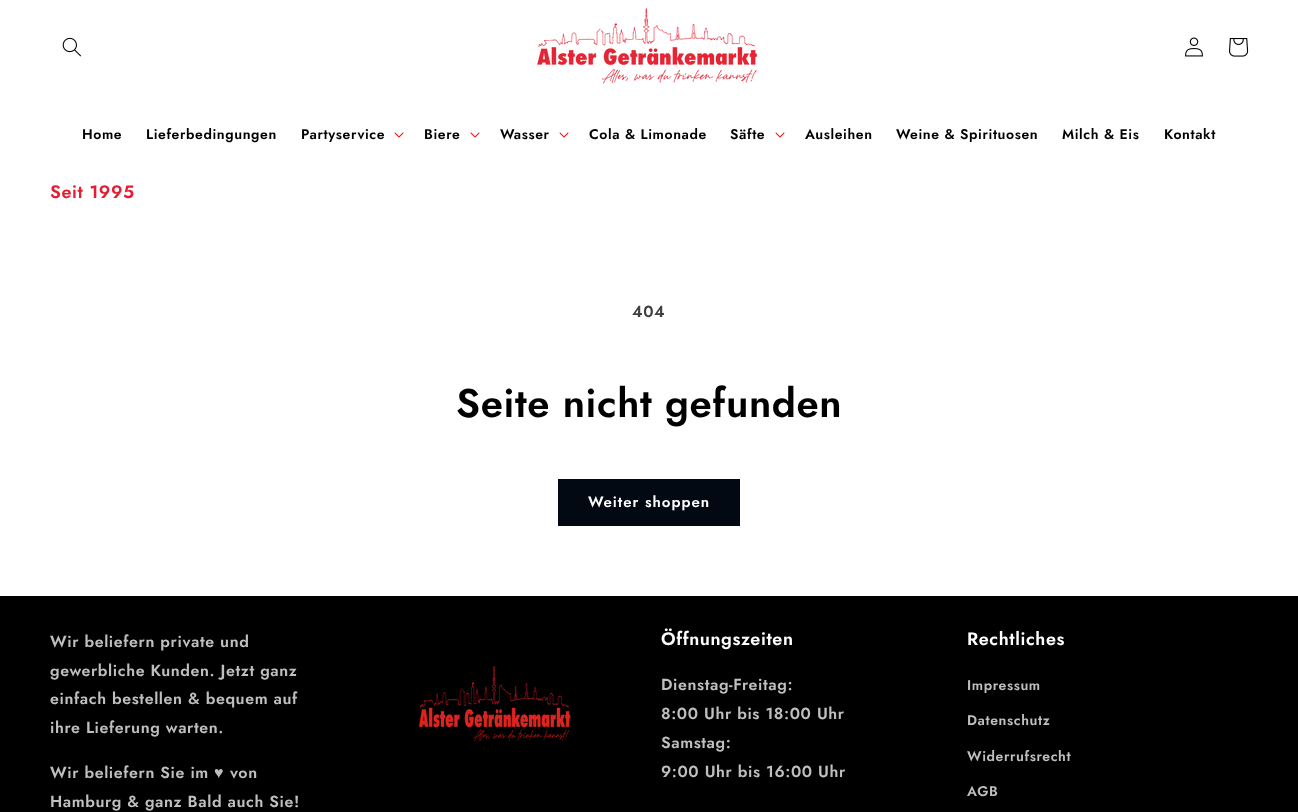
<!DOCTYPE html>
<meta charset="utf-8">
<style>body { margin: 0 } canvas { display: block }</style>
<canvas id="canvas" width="1298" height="812"></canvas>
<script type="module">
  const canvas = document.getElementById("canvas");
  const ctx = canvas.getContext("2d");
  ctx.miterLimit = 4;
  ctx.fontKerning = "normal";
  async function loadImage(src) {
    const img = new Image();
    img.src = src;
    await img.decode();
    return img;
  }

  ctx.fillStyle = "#ffffff";
  ctx.fillRect(0, 0, 1298, 812);
  ctx.drawImage(await loadImage("img1.png"), 62, 37, 19, 20);
  ctx.drawImage(await loadImage("img2.png"), 537, 8, 220, 76);
  ctx.drawImage(await loadImage("img3.png"), 1185, 37, 18, 20);
  ctx.drawImage(await loadImage("img4.png"), 1229, 38, 20, 19);
  ctx.letterSpacing = "0.6px";
  ctx.font = "600 14px Jost";
  ctx.fillStyle = "#000000";
  ctx.fillText("Home", 82, 139);
  ctx.fillText("Lieferbedingungen", 146, 139);
  ctx.fillText("Partyservice", 301, 139);
  ctx.drawImage(await loadImage("img5.png"), 394, 132, 10, 6);
  ctx.fillText("Biere", 424, 139);
  ctx.drawImage(await loadImage("img5.png"), 470, 132, 10, 6);
  ctx.fillText("Wasser", 500, 139);
  ctx.drawImage(await loadImage("img5.png"), 559, 132, 10, 6);
  ctx.fillText("Cola & Limonade", 589, 139);
  ctx.fillText("Säfte", 730, 139);
  ctx.drawImage(await loadImage("img5.png"), 775, 132, 10, 6);
  ctx.fillText("Ausleihen", 805, 139);
  ctx.fillText("Weine & Spirituosen", 896, 139);
  ctx.fillText("Milch & Eis", 1062, 139);
  ctx.fillText("Kontakt", 1164, 139);
  ctx.font = "600 18px Jost";
  ctx.fillStyle = "#e61d30";
  ctx.fillText("Seit 1995", 50, 198);
  ctx.font = "600 16px Jost";
  ctx.fillStyle = "#404040";
  ctx.fillText("404", 632, 317);
  ctx.font = "600 40px Jost";
  ctx.fillStyle = "#000000";
  ctx.fillText("Seite nicht gefunden", 456, 417);
  ctx.fillStyle = "#020912";
  ctx.fillRect(558, 479, 182, 47);
  ctx.letterSpacing = "1px";
  ctx.font = "600 15px Jost";
  ctx.fillStyle = "#ffffff";
  ctx.fillText("Weiter shoppen", 588, 507);
  ctx.fillStyle = "#000000";
  ctx.fillRect(0, 596, 1298, 216);
  ctx.letterSpacing = "0.6px";
  ctx.font = "600 16px Jost";
  ctx.fillStyle = "#bfbfbf";
  ctx.fillText("Wir beliefern private und", 50, 647);
  ctx.fillText("gewerbliche Kunden. Jetzt ganz", 50, 676);
  ctx.fillText("einfach bestellen & bequem auf", 50, 704);
  ctx.fillText("ihre Lieferung warten.", 50, 733);
  ctx.fillText("Wir beliefern Sie im", 50, 778);
  ctx.font = "bold 16px Liberation Sans";
  ctx.fillText("♥", 214, 778);
  ctx.font = "600 16px Jost";
  ctx.fillText("von", 230, 778);
  ctx.fillText("Hamburg & ganz Bald auch Sie!", 50, 807);
  ctx.drawImage(await loadImage("img6.png"), 418, 666, 153, 76);
  ctx.font = "600 18px Jost";
  ctx.fillStyle = "#ffffff";
  ctx.fillText("Öffnungszeiten", 661, 645);
  ctx.font = "600 16px Jost";
  ctx.fillStyle = "#bfbfbf";
  ctx.fillText("Dienstag-Freitag:", 661, 690);
  ctx.fillText("8:00 Uhr bis 18:00 Uhr", 661, 719);
  ctx.fillText("Samstag:", 661, 748);
  ctx.fillText("9:00 Uhr bis 16:00 Uhr", 661, 777);
  ctx.font = "600 18px Jost";
  ctx.fillStyle = "#ffffff";
  ctx.fillText("Rechtliches", 967, 645);
  ctx.font = "600 14px Jost";
  ctx.fillStyle = "#bfbfbf";
  ctx.fillText("Impressum", 967, 690);
  ctx.fillText("Datenschutz", 967, 725);
  ctx.fillText("Widerrufsrecht", 967, 761);
  ctx.fillText("AGB", 967, 796);
</script>
